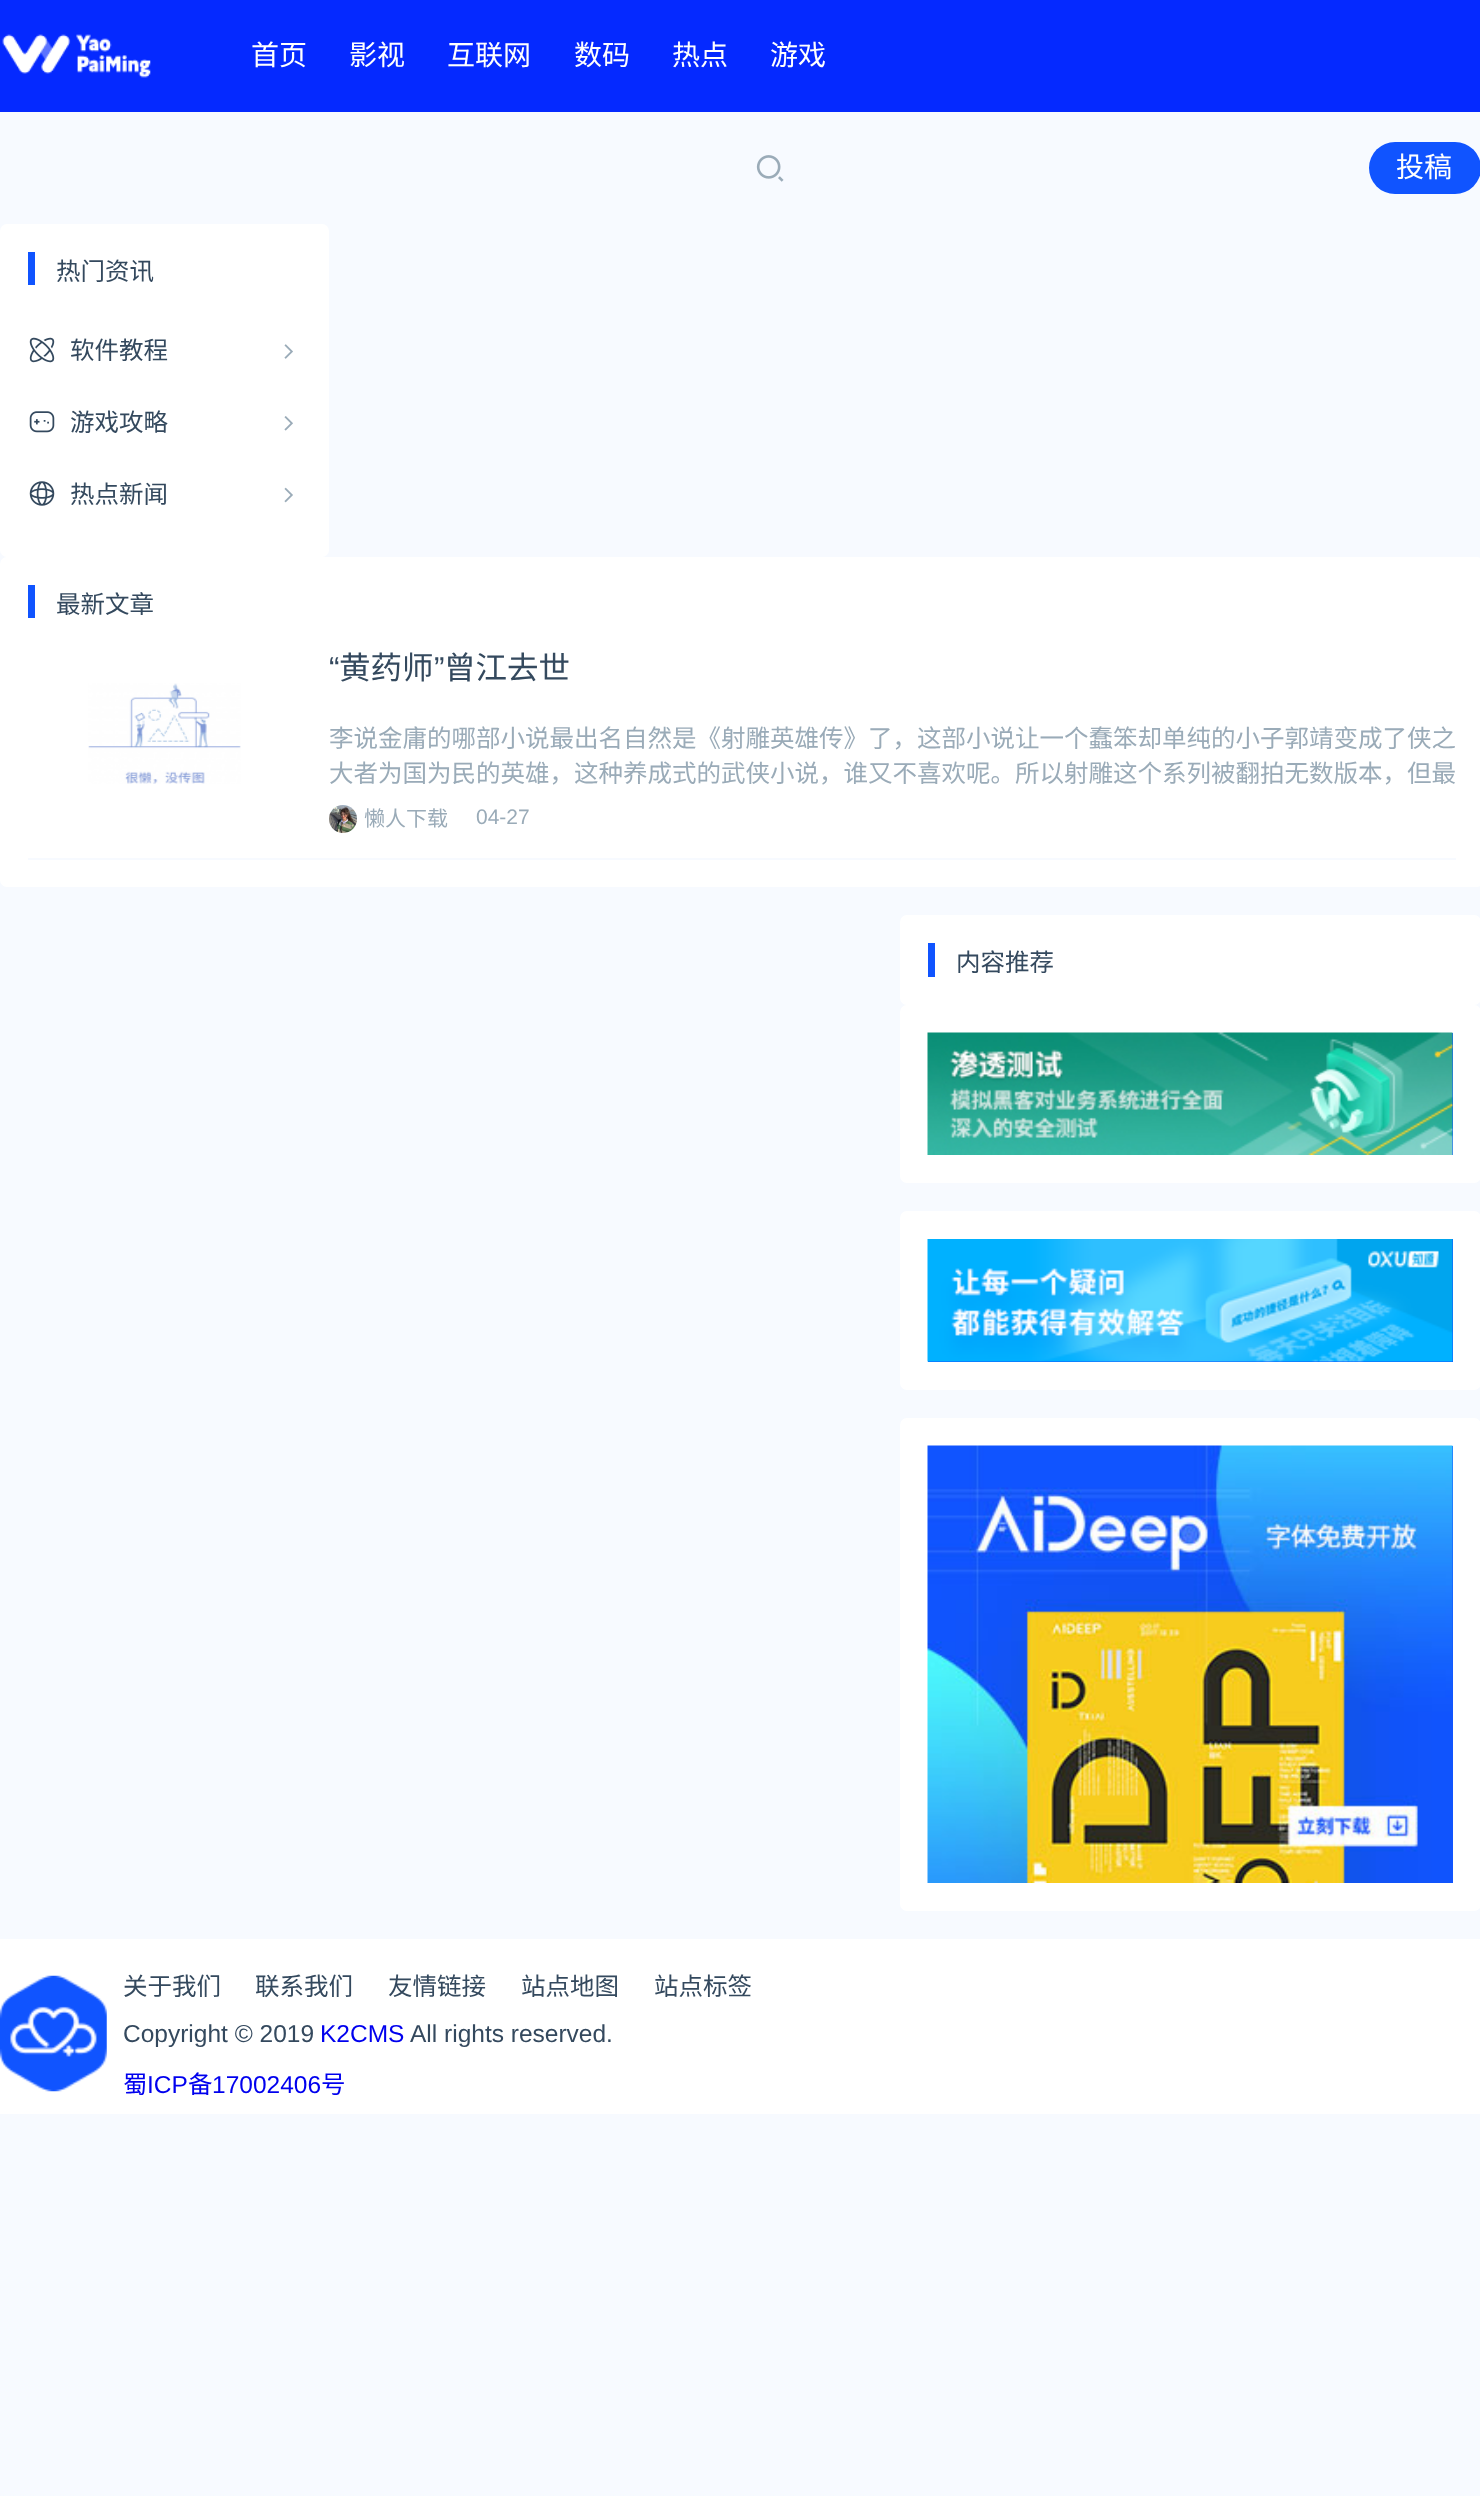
<!DOCTYPE html>
<meta charset="utf-8">
<style>body { margin: 0 } canvas { display: block }</style>
<canvas id="canvas" width="1480" height="2496"></canvas>
<script type="module">
  const canvas = document.getElementById("canvas");
  const ctx = canvas.getContext("2d");
  ctx.miterLimit = 4;
  ctx.fontKerning = "normal";
  async function loadImage(src) {
    const img = new Image();
    img.src = src;
    await img.decode();
    return img;
  }

  ctx.fillStyle = "#f7faff";
  ctx.fillRect(0, 0, 1480, 2496);
  ctx.fillStyle = "#0529ff";
  ctx.fillRect(0, 0, 1480, 112);
  ctx.drawImage(await loadImage("img1.png"), 2, 34, 149, 44);
  ctx.font = "28px Noto Sans CJK SC";
  ctx.fillStyle = "#ffffff";
  ctx.fillText("首页", 251, 65);
  ctx.fillText("影视", 349, 65);
  ctx.fillText("互联网", 447, 65);
  ctx.fillText("数码", 574, 65);
  ctx.fillText("热点", 672, 65);
  ctx.fillText("游戏", 770, 65);
  ctx.drawImage(await loadImage("img2.png"), 756, 155, 28, 27);
  ctx.fillStyle = "#1054ff";
  ctx.beginPath();
  ctx.roundRect(1369, 142, 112, 52, 26);
  ctx.fill();
  ctx.fillStyle = "#ffffff";
  ctx.fillText("投稿", 1396, 177);
  ctx.beginPath();
  ctx.roundRect(0, 224, 329, 333, 7);
  ctx.fill();
  ctx.fillStyle = "#1054ff";
  ctx.fillRect(28, 252, 7, 33);
  ctx.font = "24.5px Noto Sans CJK SC";
  ctx.fillStyle = "#34495e";
  ctx.fillText("热门资讯", 56, 280);
  ctx.drawImage(await loadImage("img3.png"), 29, 337, 26, 26);
  ctx.fillText("软件教程", 70, 359);
  ctx.drawImage(await loadImage("img4.png"), 284, 344, 9, 15);
  ctx.drawImage(await loadImage("img5.png"), 29, 411, 26, 22);
  ctx.fillText("游戏攻略", 70, 431);
  ctx.drawImage(await loadImage("img6.png"), 284, 416, 9, 15);
  ctx.drawImage(await loadImage("img7.png"), 29, 481, 26, 25);
  ctx.fillText("热点新闻", 70, 503);
  ctx.drawImage(await loadImage("img8.png"), 284, 487, 9, 16);
  ctx.fillStyle = "#ffffff";
  ctx.beginPath();
  ctx.roundRect(0, 557, 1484, 330, 7);
  ctx.fill();
  ctx.fillStyle = "#1054ff";
  ctx.fillRect(28, 585, 7, 33);
  ctx.fillStyle = "#34495e";
  ctx.fillText("最新文章", 56, 613);
  ctx.fillStyle = "#f7faff";
  ctx.fillRect(28, 858, 1428, 2);
  ctx.drawImage(await loadImage("img9.png"), 88, 683, 153, 101);
  ctx.font = "31.5px Liberation Sans";
  ctx.fillStyle = "#34495e";
  ctx.fillText("“", 329, 679);
  ctx.font = "31.5px Noto Sans CJK SC";
  ctx.fillText("黄药师", 339, 679);
  ctx.font = "31.5px Liberation Sans";
  ctx.fillText("”", 434, 679);
  ctx.font = "31.5px Noto Sans CJK SC";
  ctx.fillText("曾江去世", 444, 679);
  ctx.font = "24.5px Noto Sans CJK SC";
  ctx.fillStyle = "#9aabb8";
  ctx.fillText("李说金庸的哪部小说最出名自然是《射雕英雄传》了，这部小说让一个蠢笨却单纯的小子郭靖变成了侠之", 329, 747);
  ctx.fillText("大者为国为民的英雄，这种养成式的武侠小说，谁又不喜欢呢。所以射雕这个系列被翻拍无数版本，但最", 329, 782);
  ctx.drawImage(await loadImage("img10.png"), 329, 805, 28, 28);
  ctx.font = "21px Noto Sans CJK SC";
  ctx.fillText("懒人下载", 364, 826);
  ctx.font = "21px Liberation Sans";
  ctx.fillText("04-27", 476, 824);
  ctx.fillStyle = "#ffffff";
  ctx.beginPath();
  ctx.roundRect(900, 915, 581, 90, 7);
  ctx.fill();
  ctx.fillStyle = "#1054ff";
  ctx.fillRect(928, 943, 7, 34);
  ctx.font = "24.5px Noto Sans CJK SC";
  ctx.fillStyle = "#34495e";
  ctx.fillText("内容推荐", 956, 971);
  ctx.fillStyle = "#ffffff";
  ctx.beginPath();
  ctx.roundRect(900, 1005, 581, 178, 7);
  ctx.fill();
  ctx.fillStyle = "#1054ff";
  ctx.fillRect(1452, 1033, 1, 122);
  ctx.drawImage(await loadImage("img11.png"), 927, 1032, 526, 123);
  ctx.fillStyle = "#ffffff";
  ctx.beginPath();
  ctx.roundRect(900, 1211, 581, 179, 7);
  ctx.fill();
  ctx.fillStyle = "#1054ff";
  ctx.fillRect(928, 1239, 525, 123);
  ctx.drawImage(await loadImage("img12.png"), 927, 1239, 526, 123);
  ctx.fillStyle = "#ffffff";
  ctx.beginPath();
  ctx.roundRect(900, 1418, 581, 493, 7);
  ctx.fill();
  ctx.fillStyle = "#1054ff";
  ctx.fillRect(1452, 1446, 1, 437);
  ctx.drawImage(await loadImage("img13.png"), 927, 1445, 526, 438);
  ctx.fillStyle = "#ffffff";
  ctx.fillRect(0, 1939, 1480, 175);
  ctx.drawImage(await loadImage("img14.png"), 0, 1975, 107, 117);
  ctx.fillStyle = "#34495e";
  ctx.fillText("关于我们", 123, 1995);
  ctx.fillText("联系我们", 255, 1995);
  ctx.fillText("友情链接", 388, 1995);
  ctx.fillText("站点地图", 521, 1995);
  ctx.fillText("站点标签", 654, 1995);
  ctx.font = "24.5px Liberation Sans";
  ctx.fillText("Copyright © 2019", 123, 2042);
  ctx.fillStyle = "#0000ee";
  ctx.fillText("K2CMS", 320, 2042);
  ctx.fillStyle = "#34495e";
  ctx.fillText("All rights reserved.", 410, 2042);
  ctx.font = "24.5px Noto Sans CJK SC";
  ctx.fillStyle = "#0000ee";
  ctx.fillText("蜀", 123, 2093);
  ctx.font = "24.5px Liberation Sans";
  ctx.fillText("ICP", 147, 2093);
  ctx.font = "24.5px Noto Sans CJK SC";
  ctx.fillText("备", 188, 2093);
  ctx.font = "24.5px Liberation Sans";
  ctx.fillText("17002406", 212, 2093);
  ctx.font = "24.5px Noto Sans CJK SC";
  ctx.fillText("号", 321, 2093);
</script>
